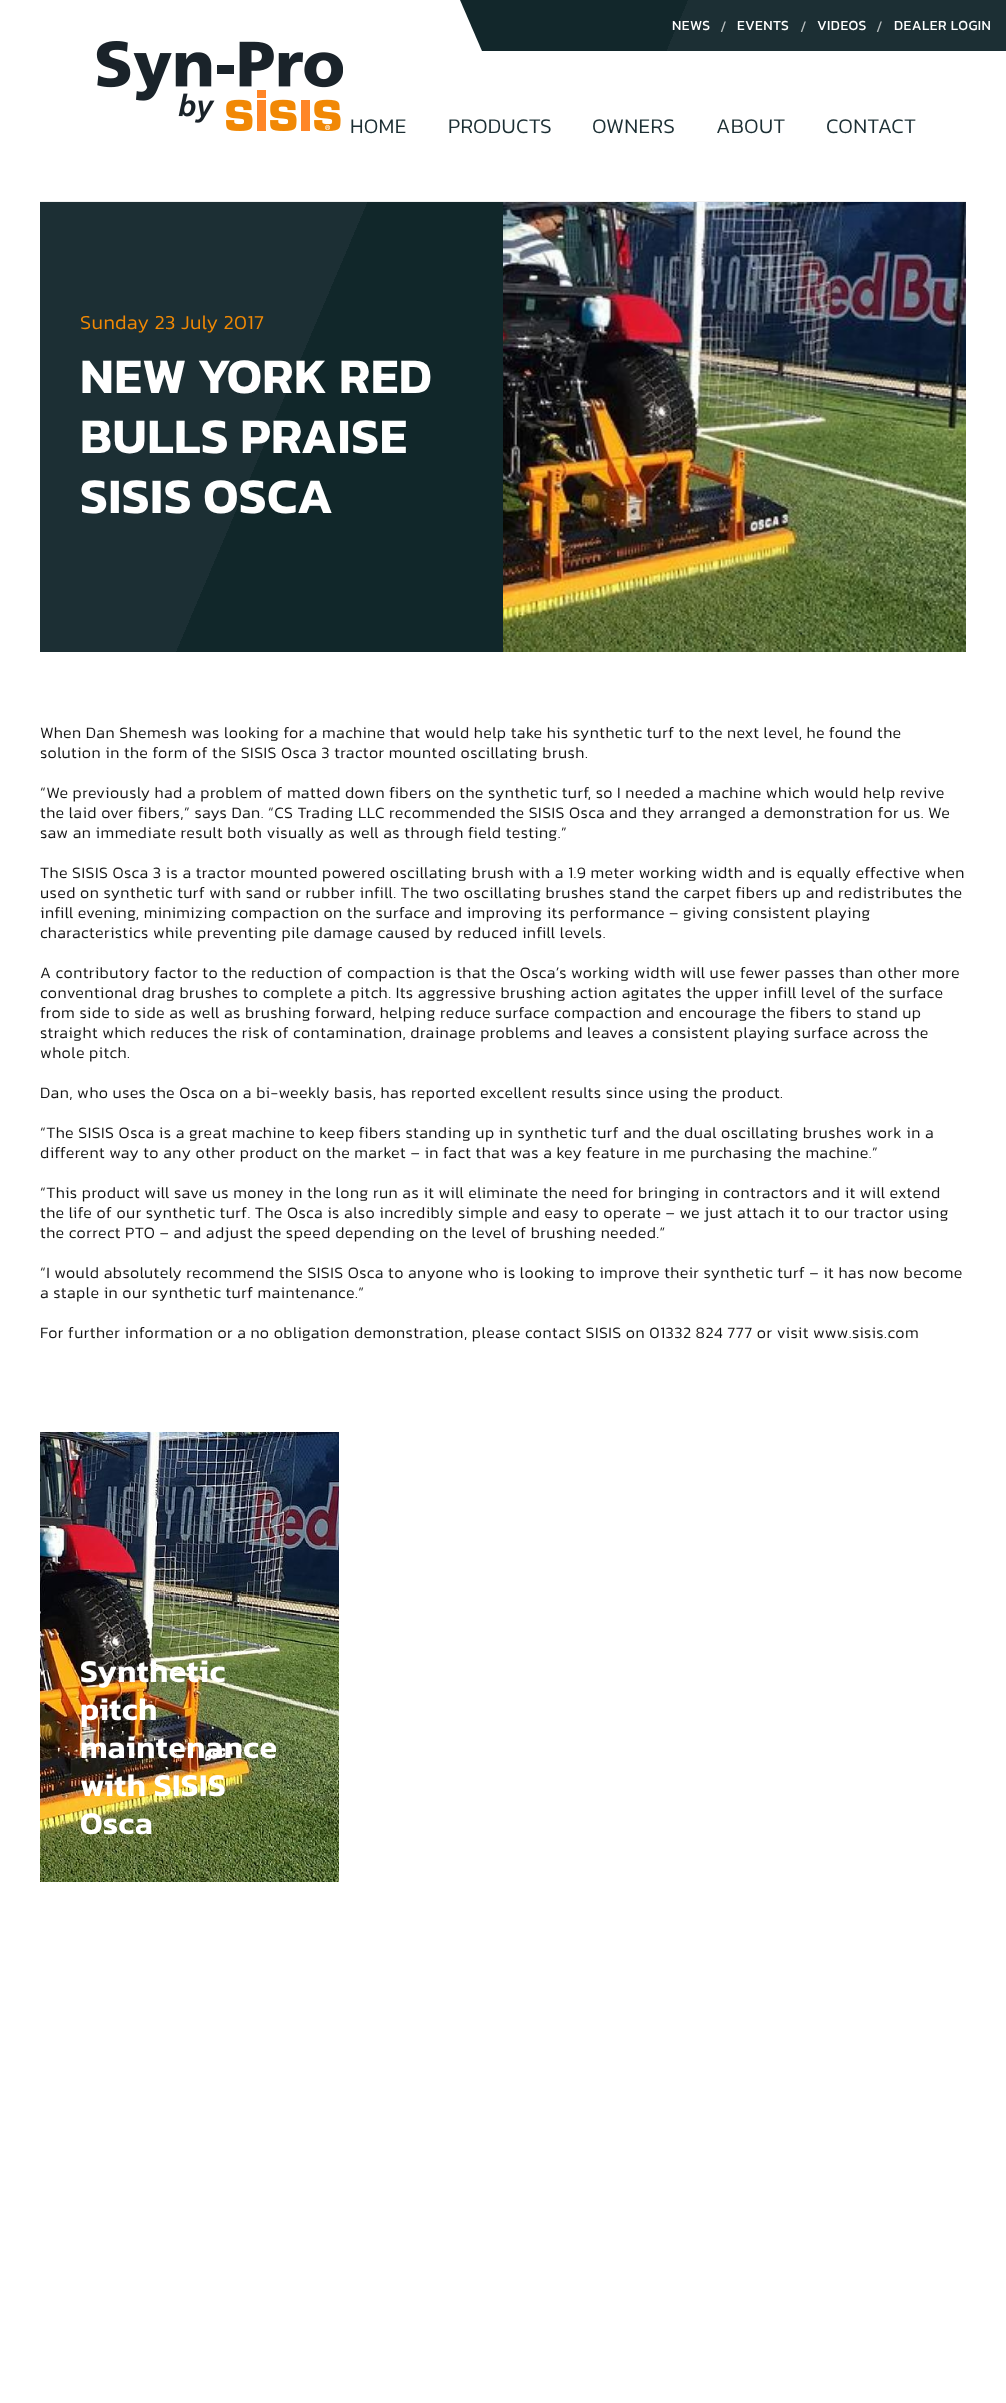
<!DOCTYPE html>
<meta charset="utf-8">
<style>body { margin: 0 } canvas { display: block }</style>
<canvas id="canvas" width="1006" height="2403"></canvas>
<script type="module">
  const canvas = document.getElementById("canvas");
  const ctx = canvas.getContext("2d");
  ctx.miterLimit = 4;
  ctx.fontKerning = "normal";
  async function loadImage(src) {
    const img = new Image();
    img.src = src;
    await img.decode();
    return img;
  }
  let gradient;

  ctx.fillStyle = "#ffffff";
  ctx.fillRect(0, 0, 1006, 2403);
  gradient = ctx.createLinearGradient(938, 210, -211, -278);
  gradient.addColorStop(0, "#1c2f34");
  gradient.addColorStop(0.25, "#1c2f34");
  gradient.addColorStop(0.25, "#12272b");
  gradient.addColorStop(0.5, "#12272b");
  gradient.addColorStop(0.5, "#1c2f34");
  gradient.addColorStop(0.75, "#1c2f34");
  gradient.addColorStop(0.75, "#12272b");
  gradient.addColorStop(1, "#12272b");
  ctx.fillStyle = gradient;
  ctx.fillRect(460, 0, 546, 51);
  ctx.fillStyle = "#ffffff";
  ctx.beginPath();
  ctx.moveTo(-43, 0);
  ctx.lineTo(460, 0);
  ctx.lineTo(482, 51);
  ctx.lineTo(-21, 51);
  ctx.closePath();
  ctx.fill();
  ctx.letterSpacing = "0.48px";
  ctx.font = "14px Kanit";
  ctx.fillText("NEWS", 672, 30);
  ctx.font = "300 16px Kanit";
  ctx.fillStyle = "#bbc1c2";
  ctx.fillText("/", 720, 32);
  ctx.font = "14px Kanit";
  ctx.fillStyle = "#ffffff";
  ctx.fillText("EVENTS", 737, 30);
  ctx.font = "300 16px Kanit";
  ctx.fillStyle = "#bbc1c2";
  ctx.fillText("/", 800, 32);
  ctx.font = "14px Kanit";
  ctx.fillStyle = "#ffffff";
  ctx.fillText("VIDEOS", 817, 30);
  ctx.font = "300 16px Kanit";
  ctx.fillStyle = "#bbc1c2";
  ctx.fillText("/", 876, 32);
  ctx.font = "14px Kanit";
  ctx.fillStyle = "#ffffff";
  ctx.fillText("DEALER LOGIN", 894, 30);
  ctx.drawImage(await loadImage("img1.png"), 96, 41, 247, 90);
  ctx.letterSpacing = "0.25px";
  ctx.font = "300 21px Kanit";
  ctx.fillStyle = "#1c2f34";
  ctx.fillText("HOME", 350, 133);
  ctx.fillText("PRODUCTS", 448, 133);
  ctx.fillText("OWNERS", 592, 133);
  ctx.fillText("ABOUT", 716, 133);
  ctx.fillText("CONTACT", 826, 133);
  ctx.fillStyle = "#f0f0f0";
  ctx.fillRect(40, 201, 926, 1);
  gradient = ctx.createLinearGradient(549, 545, -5.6, 309);
  gradient.addColorStop(0, "#11272a");
  gradient.addColorStop(0.5, "#11272a");
  gradient.addColorStop(0.5, "#1c2f34");
  gradient.addColorStop(1, "#1c2f34");
  ctx.fillStyle = gradient;
  ctx.fillRect(40, 202, 463, 450);
  ctx.letterSpacing = "0.48px";
  ctx.font = "300 20px Kanit";
  ctx.fillStyle = "#f18904";
  ctx.fillText("Sunday 23 July 2017", 80, 329);
  ctx.font = "600 50px Kanit";
  ctx.fillStyle = "#ffffff";
  ctx.fillText("NEW YORK RED", 80, 393);
  ctx.fillText("BULLS PRAISE", 80, 453);
  ctx.fillText("SISIS OSCA", 80, 513);
  ctx.drawImage(await loadImage("img2.png"), 503, 202, 463, 450);
  ctx.font = "300 16px Kanit";
  ctx.fillStyle = "#151515";
  ctx.fillText("When Dan Shemesh was looking for a machine that would help take his synthetic turf to the next level, he found the", 40, 738);
  ctx.fillText("solution in the form of the SISIS Osca 3 tractor mounted oscillating brush.", 40, 758);
  ctx.fillText("“We previously had a problem of matted down fibers on the synthetic turf, so I needed a machine which would help revive", 40, 798);
  ctx.fillText("the laid over fibers,” says Dan. “CS Trading LLC recommended the SISIS Osca and they arranged a demonstration for us. We", 40, 818);
  ctx.fillText("saw an immediate result both visually as well as through field testing.”", 40, 838);
  ctx.fillText("The SISIS Osca 3 is a tractor mounted powered oscillating brush with a 1.9 meter working width and is equally effective when", 40, 878);
  ctx.fillText("used on synthetic turf with sand or rubber infill. The two oscillating brushes stand the carpet fibers up and redistributes the", 40, 898);
  ctx.fillText("infill evening, minimizing compaction on the surface and improving its performance – giving consistent playing", 40, 918);
  ctx.fillText("characteristics while preventing pile damage caused by reduced infill levels.", 40, 938);
  ctx.fillText("A contributory factor to the reduction of compaction is that the Osca’s working width will use fewer passes than other more", 40, 978);
  ctx.fillText("conventional drag brushes to complete a pitch. Its aggressive brushing action agitates the upper infill level of the surface", 40, 998);
  ctx.fillText("from side to side as well as brushing forward, helping reduce surface compaction and encourage the fibers to stand up", 40, 1018);
  ctx.fillText("straight which reduces the risk of contamination, drainage problems and leaves a consistent playing surface across the", 40, 1038);
  ctx.fillText("whole pitch.", 40, 1058);
  ctx.fillText("Dan, who uses the Osca on a bi-weekly basis, has reported excellent results since using the product.", 40, 1098);
  ctx.fillText("“The SISIS Osca is a great machine to keep fibers standing up in synthetic turf and the dual oscillating brushes work in a", 40, 1138);
  ctx.fillText("different way to any other product on the market – in fact that was a key feature in me purchasing the machine.”", 40, 1158);
  ctx.fillText("“This product will save us money in the long run as it will eliminate the need for bringing in contractors and it will extend", 40, 1198);
  ctx.fillText("the life of our synthetic turf. The Osca is also incredibly simple and easy to operate – we just attach it to our tractor using", 40, 1218);
  ctx.fillText("the correct PTO – and adjust the speed depending on the level of brushing needed.”", 40, 1238);
  ctx.fillText("“I would absolutely recommend the SISIS Osca to anyone who is looking to improve their synthetic turf – it has now become", 40, 1278);
  ctx.fillText("a staple in our synthetic turf maintenance.”", 40, 1298);
  ctx.fillText("For further information or a no obligation demonstration, please contact SISIS on 01332 824 777 or visit www.sisis.com", 40, 1338);
  ctx.drawImage(await loadImage("img3.png"), 40, 1432, 299, 450);
  ctx.font = "600 32px Kanit";
  ctx.fillStyle = "#ffffff";
  ctx.fillText("Synthetic", 80, 1682);
  ctx.fillText("pitch", 80, 1720);
  ctx.fillText("maintenance", 80, 1758);
  ctx.fillText("with SISIS", 80, 1796);
  ctx.fillText("Osca", 80, 1834);
</script>
